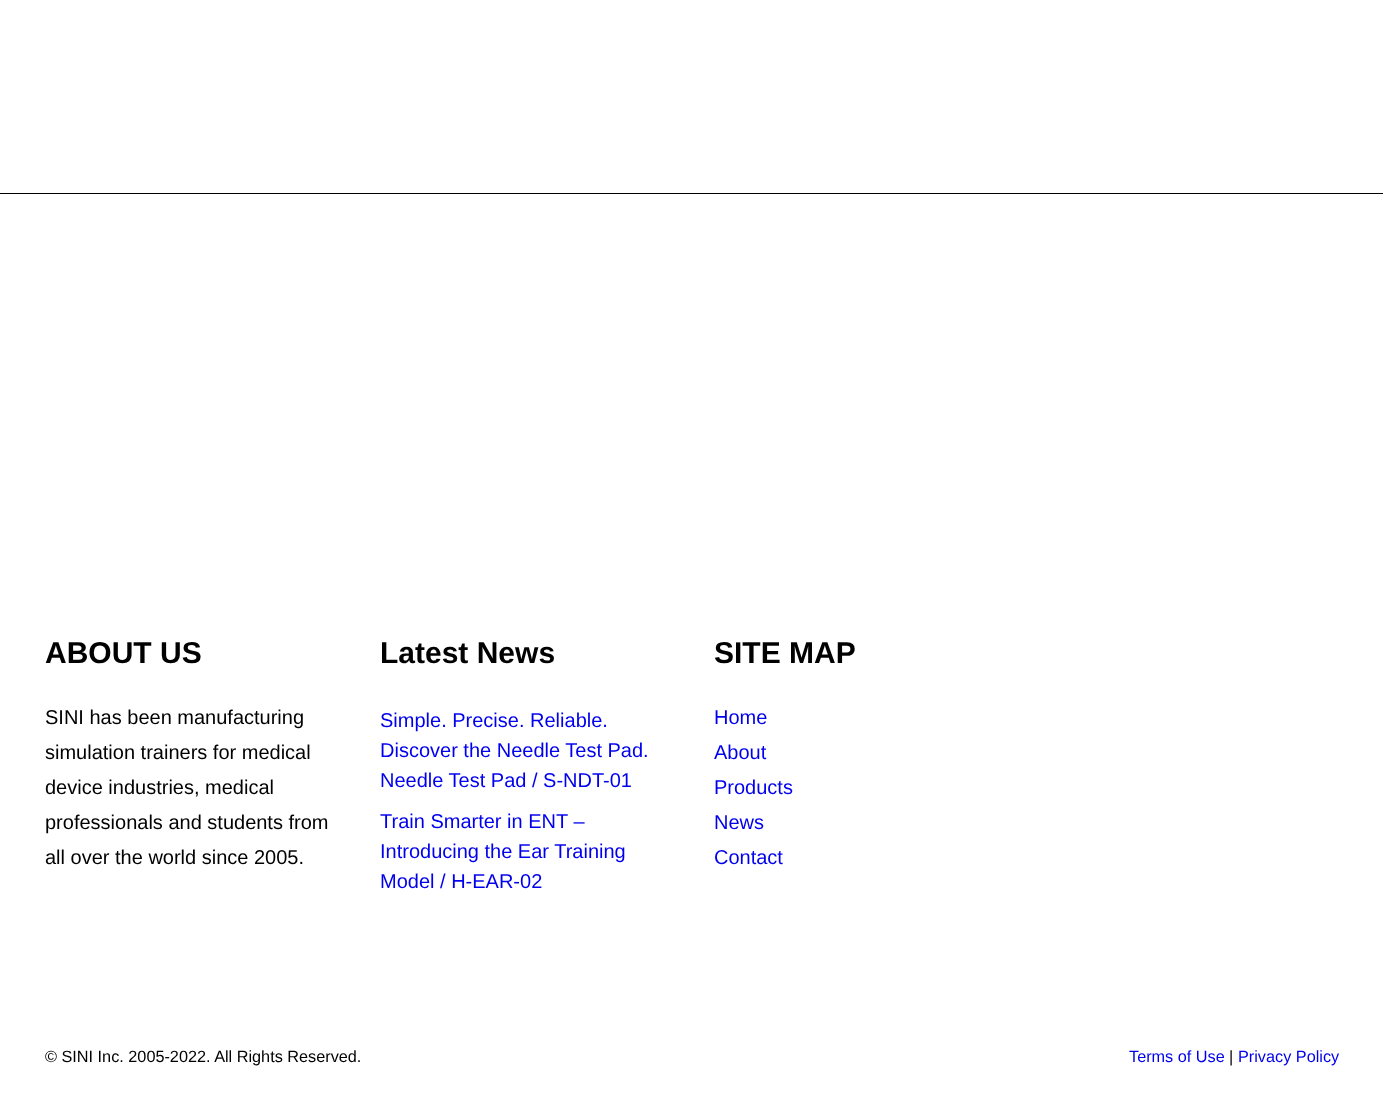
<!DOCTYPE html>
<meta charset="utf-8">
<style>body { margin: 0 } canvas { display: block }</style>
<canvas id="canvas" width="1383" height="1105"></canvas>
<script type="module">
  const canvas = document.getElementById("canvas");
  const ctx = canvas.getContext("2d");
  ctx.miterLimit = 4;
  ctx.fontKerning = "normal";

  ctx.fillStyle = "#ffffff";
  ctx.fillRect(0, 0, 1383, 1105);
  ctx.fillStyle = "#000000";
  ctx.fillRect(0, 193, 1383, 1);
  ctx.font = "bold 30px Liberation Sans";
  ctx.fillText("ABOUT US", 45, 663);
  ctx.font = "20px Liberation Sans";
  ctx.fillText("SINI has been manufacturing", 45, 724);
  ctx.fillText("simulation trainers for medical", 45, 759);
  ctx.fillText("device industries, medical", 45, 794);
  ctx.fillText("professionals and students from", 45, 829);
  ctx.fillText("all over the world since 2005.", 45, 864);
  ctx.font = "bold 30px Liberation Sans";
  ctx.fillText("Latest News", 380, 663);
  ctx.font = "20px Liberation Sans";
  ctx.fillStyle = "#0000ee";
  ctx.fillText("Simple. Precise. Reliable.", 380, 727);
  ctx.fillText("Discover the Needle Test Pad.", 380, 757);
  ctx.fillText("Needle Test Pad / S-NDT-01", 380, 787);
  ctx.fillText("Train Smarter in ENT –", 380, 828);
  ctx.fillText("Introducing the Ear Training", 380, 858);
  ctx.fillText("Model / H-EAR-02", 380, 888);
  ctx.font = "bold 30px Liberation Sans";
  ctx.fillStyle = "#000000";
  ctx.fillText("SITE MAP", 714, 663);
  ctx.font = "20px Liberation Sans";
  ctx.fillStyle = "#0000ee";
  ctx.fillText("Home", 714, 724);
  ctx.fillText("About", 714, 759);
  ctx.fillText("Products", 714, 794);
  ctx.fillText("News", 714, 829);
  ctx.fillText("Contact", 714, 864);
  ctx.font = "16.25px Liberation Sans";
  ctx.fillStyle = "#000000";
  ctx.fillText("© SINI Inc. 2005-2022. All Rights Reserved.", 45, 1062);
  ctx.fillStyle = "#0000ee";
  ctx.fillText("Terms of Use", 1129, 1062);
  ctx.fillStyle = "#000000";
  ctx.fillText("|", 1229, 1062);
  ctx.fillStyle = "#0000ee";
  ctx.fillText("Privacy Policy", 1238, 1062);
</script>
